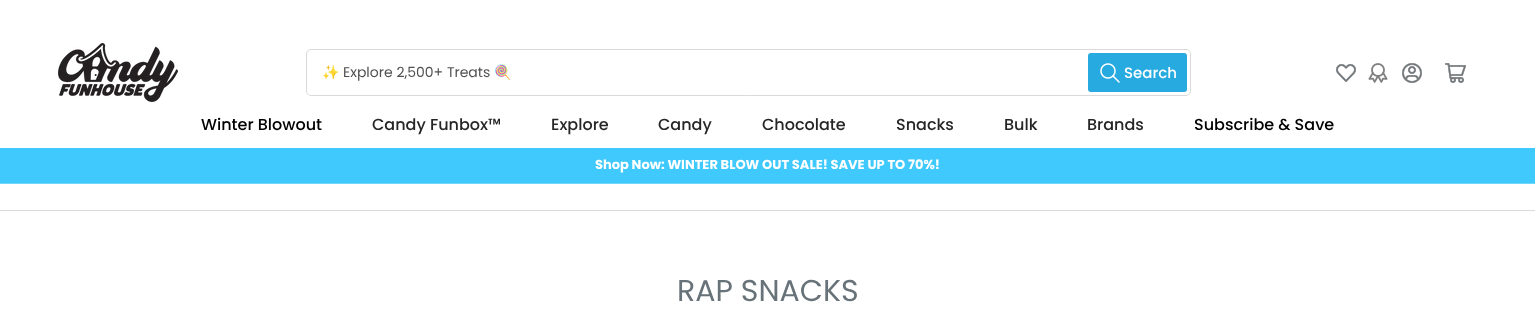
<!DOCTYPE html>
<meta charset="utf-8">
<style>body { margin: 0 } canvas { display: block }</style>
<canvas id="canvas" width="1535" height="336"></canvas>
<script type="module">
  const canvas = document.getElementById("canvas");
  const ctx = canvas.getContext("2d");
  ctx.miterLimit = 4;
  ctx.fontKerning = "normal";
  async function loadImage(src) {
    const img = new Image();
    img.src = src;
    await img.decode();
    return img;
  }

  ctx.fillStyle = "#ffffff";
  ctx.fillRect(0, 0, 1535, 336);
  ctx.drawImage(await loadImage("img1.png"), 58, 43, 120, 59);
  ctx.beginPath();
  ctx.roundRect(306.5, 49.5, 884, 46, 4.5);
  ctx.strokeStyle = "#dadada";
  ctx.stroke();
  ctx.save();
  ctx.beginPath();
  ctx.rect(322, 62, 853, 21);
  ctx.clip();
  ctx.font = "14px Noto Color Emoji";
  ctx.fillStyle = "#515151";
  ctx.fillText("✨", 322, 77);
  ctx.restore();
  ctx.font = "14px Poppins";
  ctx.fillStyle = "#515151";
  ctx.fillText("Explore 2,500+ Treats", 343, 77);
  ctx.font = "14px Noto Color Emoji";
  ctx.fillText("🍭", 494, 77);
  ctx.fillStyle = "#26aae0";
  ctx.beginPath();
  ctx.roundRect(1088, 53, 99, 39, 3);
  ctx.fill();
  ctx.drawImage(await loadImage("img2.png"), 1100, 63, 20, 20);
  ctx.font = "500 15px Poppins";
  ctx.fillStyle = "#ffffff";
  ctx.fillText("Search", 1124, 78);
  ctx.drawImage(await loadImage("img3.png"), 1336, 64, 20, 18);
  ctx.drawImage(await loadImage("img4.png"), 1368, 63, 20, 20);
  ctx.drawImage(await loadImage("img5.png"), 1402, 63, 20, 20);
  ctx.drawImage(await loadImage("img6.png"), 1445, 63, 21, 20);
  ctx.font = "500 16px Poppins";
  ctx.fillStyle = "#000000";
  ctx.fillText("Winter Blowout", 201, 130);
  ctx.fillStyle = "#262626";
  ctx.fillText("Candy Funbox™", 372, 130);
  ctx.fillText("Explore", 551, 130);
  ctx.fillText("Candy", 658, 130);
  ctx.fillText("Chocolate", 762, 130);
  ctx.fillText("Snacks", 896, 130);
  ctx.fillText("Bulk", 1004, 130);
  ctx.fillText("Brands", 1087, 130);
  ctx.fillStyle = "#000000";
  ctx.fillText("Subscribe & Save", 1194, 130);
  ctx.fillStyle = "#3fc9fd";
  ctx.fillRect(0, 148, 1535, 35);
  ctx.fillStyle = "#6fd7fe";
  ctx.fillRect(0, 183, 1535, 1);
  ctx.font = "bold 13px Poppins";
  ctx.fillStyle = "#ffffff";
  ctx.fillText("Shop Now: WINTER BLOW OUT SALE! SAVE UP TO 70%!", 595, 169);
  ctx.fillStyle = "#dadada";
  ctx.fillRect(0, 210, 1535, 1);
  ctx.font = "30px Poppins";
  ctx.fillStyle = "#677279";
  ctx.fillText("RAP SNACKS", 677, 301);
</script>
